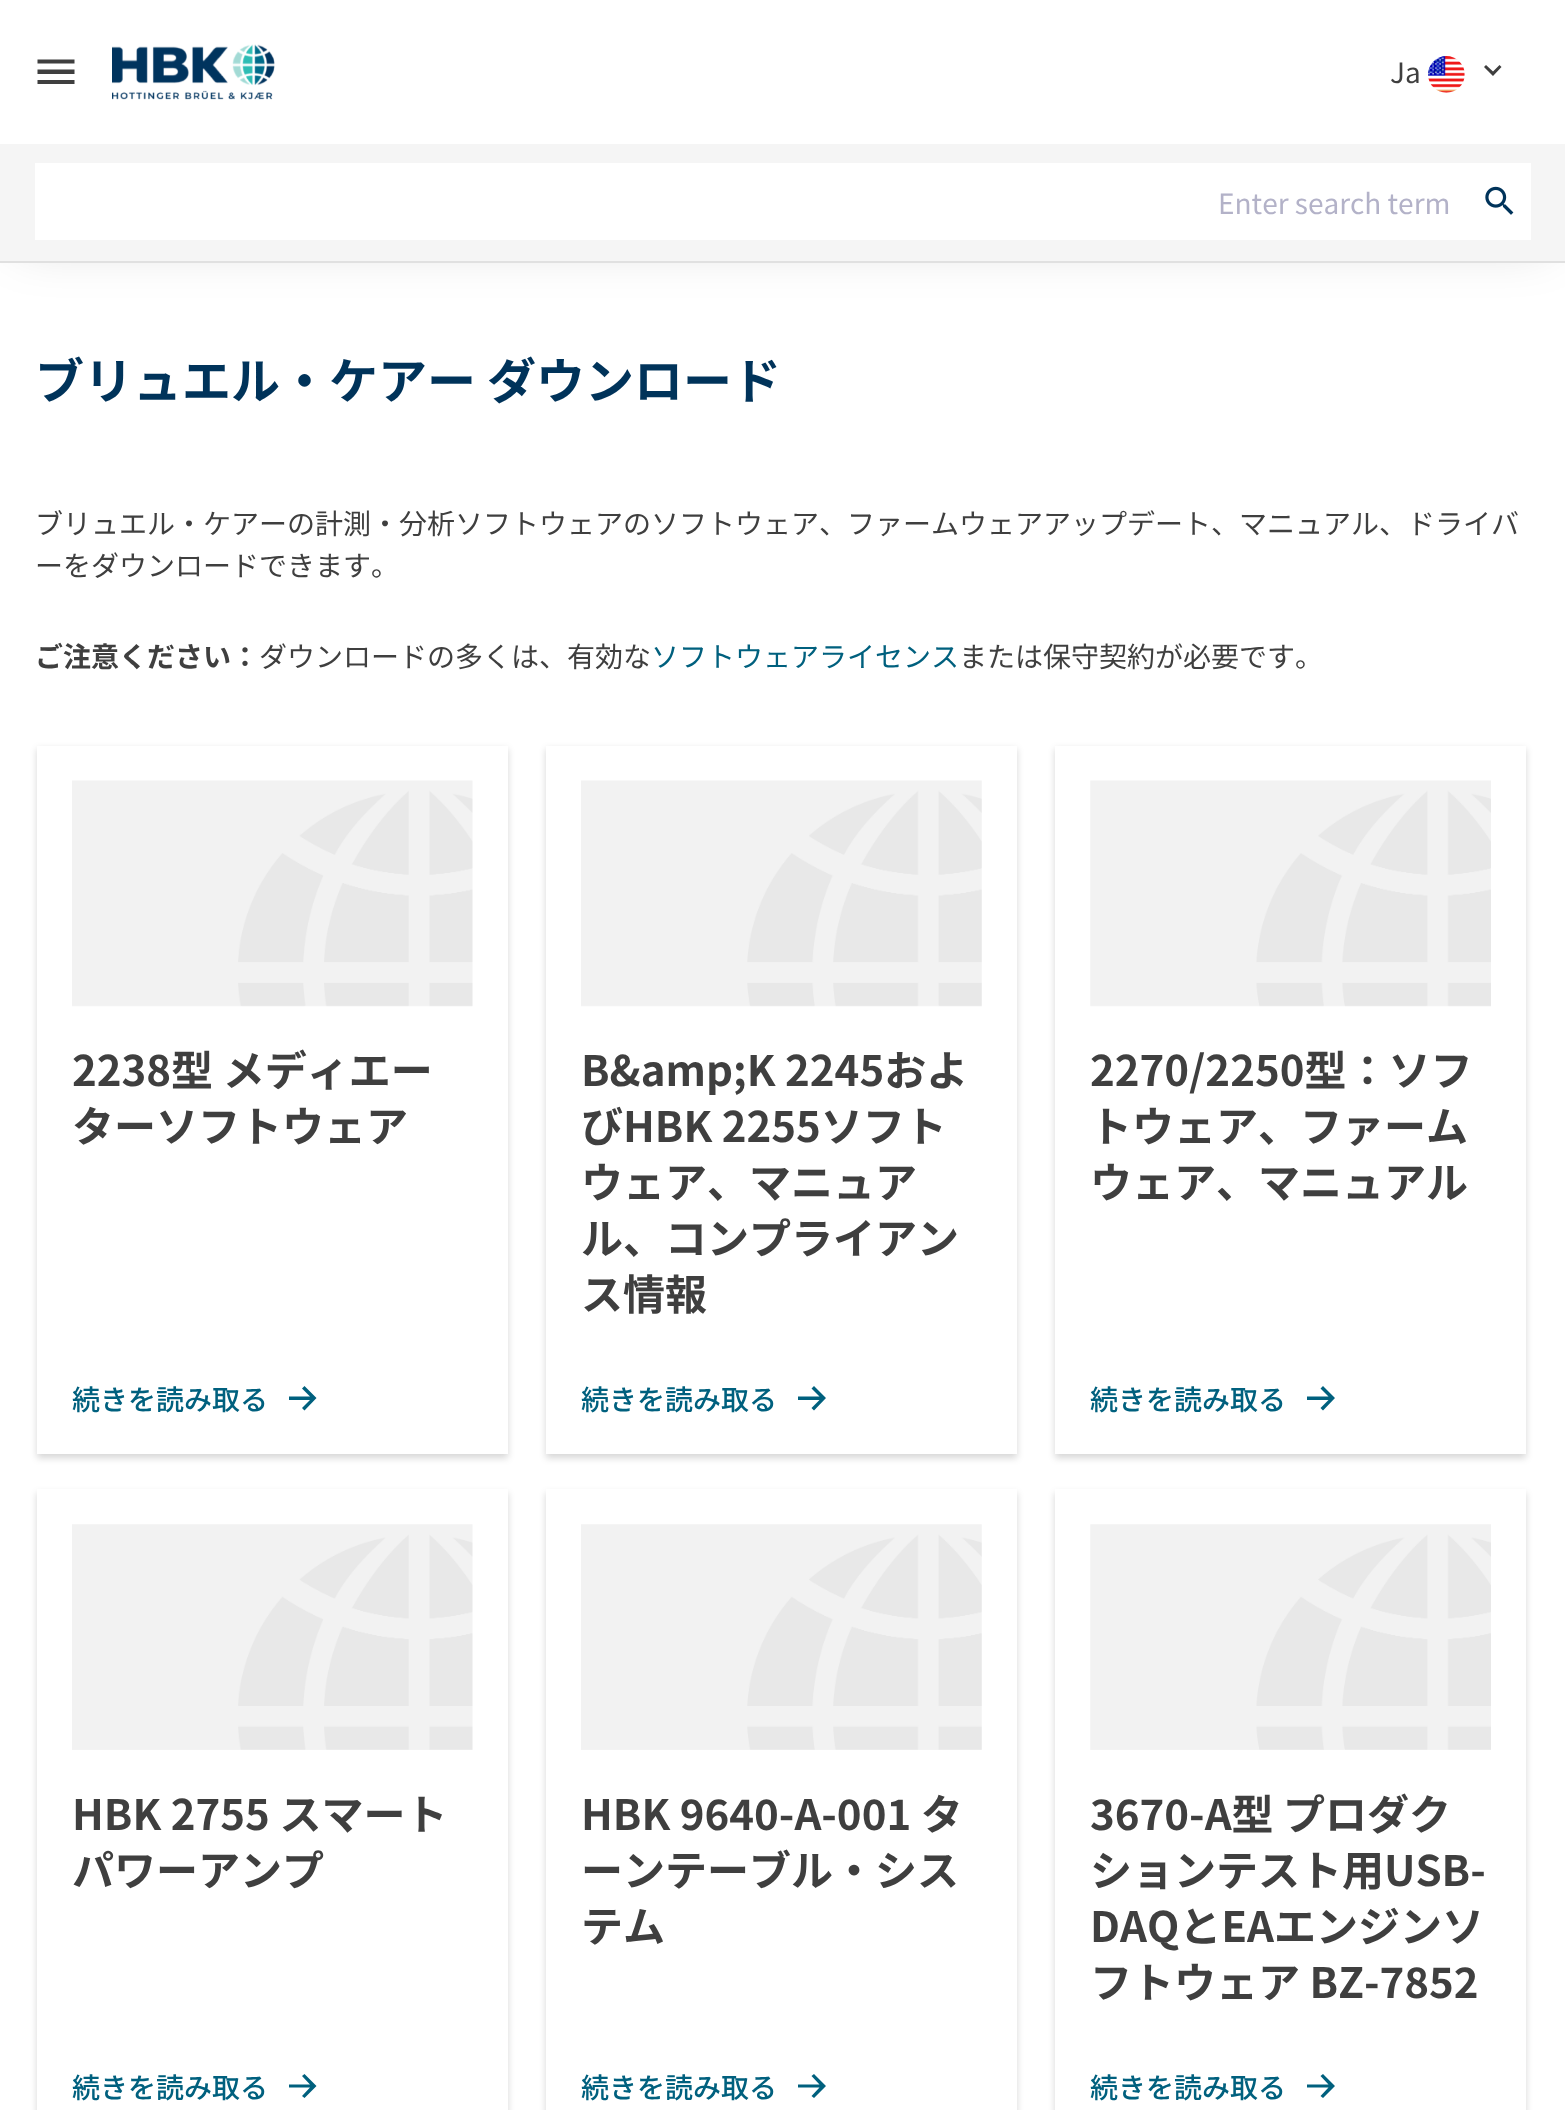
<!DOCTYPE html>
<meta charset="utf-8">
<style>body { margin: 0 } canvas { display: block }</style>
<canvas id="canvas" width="1565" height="2110"></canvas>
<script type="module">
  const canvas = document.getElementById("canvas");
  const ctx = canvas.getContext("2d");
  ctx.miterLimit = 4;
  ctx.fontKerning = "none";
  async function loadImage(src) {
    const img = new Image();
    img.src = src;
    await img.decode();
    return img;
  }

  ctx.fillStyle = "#ffffff";
  ctx.fillRect(0, 0, 1565, 2110);
  ctx.fillStyle = "rgba(0, 0, 0, 0.16)";
  ctx.filter = "blur(26px)";
  ctx.beginPath();
  ctx.rect(18, 18, 1531, 227);
  ctx.fill();
  ctx.filter = "none";
  ctx.fillStyle = "#ffffff";
  ctx.fillRect(0, 0, 1565, 144);
  ctx.fillStyle = "#e0e0e0";
  ctx.fillRect(0, 261, 1565, 2);
  ctx.fillStyle = "#3f3f3f";
  ctx.beginPath();
  ctx.moveTo(37.5, 59.5);
  ctx.lineTo(74.5, 59.5);
  ctx.lineTo(74.5, 63.5);
  ctx.lineTo(37.5, 63.5);
  ctx.closePath();
  ctx.moveTo(37.5, 74);
  ctx.lineTo(37.5, 69.5);
  ctx.lineTo(74.5, 69.5);
  ctx.lineTo(74.5, 74);
  ctx.closePath();
  ctx.moveTo(37.5, 84);
  ctx.lineTo(37.5, 80);
  ctx.lineTo(74.5, 80);
  ctx.lineTo(74.5, 84);
  ctx.closePath();
  ctx.fill();
  ctx.drawImage(await loadImage("img1.png"), 112, 44, 163, 56);
  ctx.font = "28px Noto Sans JP";
  ctx.fillText("Ja", 1390, 83);
  ctx.drawImage(await loadImage("img2.png"), 1428, 56, 37, 37);
  ctx.beginPath();
  ctx.moveTo(1499.5, 65);
  ctx.lineTo(1501.5, 67);
  ctx.lineTo(1493, 76);
  ctx.lineTo(1484, 67);
  ctx.lineTo(1486, 65);
  ctx.lineTo(1493, 71.5);
  ctx.closePath();
  ctx.fill();
  ctx.fillStyle = "#f5f5f5";
  ctx.fillRect(0, 144, 1565, 117);
  ctx.fillStyle = "#ffffff";
  ctx.fillRect(35, 163, 1496, 77);
  ctx.fillStyle = "#b3b2c8";
  ctx.fillText("Enter search term", 1218, 214);
  ctx.drawImage(await loadImage("img3.png"), 1485, 186, 29, 29);
  ctx.font = "bold 49px Noto Sans JP";
  ctx.fillStyle = "#00335a";
  ctx.fillText("ブリュエル・ケアー ダウンロード", 35, 399);
  ctx.font = "28px Noto Sans JP";
  ctx.fillStyle = "#3f3f3f";
  ctx.fillText("ブリュエル・ケアーの計測・分析ソフトウェアのソフトウェア、ファー", 35, 534);
  ctx.fillText("ムウェアアップデート、マニュアル、ドライバ", 931, 534);
  ctx.fillText("ーをダウンロードできます。", 35, 576);
  ctx.font = "bold 28px Noto Sans JP";
  ctx.fillText("ご注意ください：", 35, 667);
  ctx.font = "28px Noto Sans JP";
  ctx.fillText("ダウンロードの多くは、有効な", 259, 667);
  ctx.fillStyle = "#00607e";
  ctx.fillText("ソフトウェアライセンス", 651, 667);
  ctx.fillStyle = "#3f3f3f";
  ctx.fillText("または保守契約が必要です。", 959, 667);
  ctx.save();
  ctx.beginPath();
  ctx.moveTo(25, 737);
  ctx.lineTo(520, 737);
  ctx.lineTo(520, 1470);
  ctx.lineTo(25, 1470);
  ctx.closePath();
  ctx.moveTo(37, 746);
  ctx.lineTo(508, 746);
  ctx.lineTo(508, 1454);
  ctx.lineTo(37, 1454);
  ctx.closePath();
  ctx.clip("evenodd");
  ctx.fillStyle = "rgba(0, 0, 0, 0.16)";
  ctx.filter = "blur(3.5px)";
  ctx.beginPath();
  ctx.rect(37, 749, 471, 709);
  ctx.fill();
  ctx.filter = "none";
  ctx.restore();
  ctx.drawImage(await loadImage("img4.png"), 72, 780, 401, 227);
  ctx.font = "bold 42px Noto Sans JP";
  ctx.fillText("2238型 メディエー", 72, 1086);
  ctx.fillText("ターソフトウェア", 72, 1142);
  ctx.font = "500 28px Noto Sans JP";
  ctx.fillStyle = "#00607e";
  ctx.fillText("続きを読み取る", 72, 1410);
  ctx.beginPath();
  ctx.moveTo(304.5, 1386);
  ctx.lineTo(302, 1388.5);
  ctx.lineTo(310, 1396.5);
  ctx.lineTo(282, 1396.5);
  ctx.lineTo(282, 1400);
  ctx.lineTo(310, 1400);
  ctx.lineTo(302, 1408);
  ctx.lineTo(304.5, 1410.5);
  ctx.lineTo(316.5, 1398);
  ctx.closePath();
  ctx.fill();
  ctx.fillStyle = "#ffffff";
  ctx.fillRect(282, 1396, 7, 4);
  ctx.save();
  ctx.beginPath();
  ctx.moveTo(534, 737);
  ctx.lineTo(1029, 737);
  ctx.lineTo(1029, 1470);
  ctx.lineTo(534, 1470);
  ctx.closePath();
  ctx.moveTo(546, 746);
  ctx.lineTo(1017, 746);
  ctx.lineTo(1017, 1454);
  ctx.lineTo(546, 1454);
  ctx.closePath();
  ctx.clip("evenodd");
  ctx.fillStyle = "rgba(0, 0, 0, 0.16)";
  ctx.filter = "blur(3.5px)";
  ctx.beginPath();
  ctx.rect(546, 749, 471, 709);
  ctx.fill();
  ctx.filter = "none";
  ctx.restore();
  ctx.drawImage(await loadImage("img5.png"), 581, 780, 401, 227);
  ctx.font = "bold 42px Noto Sans JP";
  ctx.fillStyle = "#3f3f3f";
  ctx.fillText("B&amp;K 2245およ", 581, 1086);
  ctx.fillText("びHBK 2255ソフト", 581, 1142);
  ctx.fillText("ウェア、マニュア", 581, 1198);
  ctx.fillText("ル、コンプライアン", 581, 1254);
  ctx.fillText("ス情報", 581, 1310);
  ctx.font = "500 28px Noto Sans JP";
  ctx.fillStyle = "#00607e";
  ctx.fillText("続きを読み取る", 581, 1410);
  ctx.beginPath();
  ctx.moveTo(814, 1386);
  ctx.lineTo(811.5, 1388.5);
  ctx.lineTo(819.5, 1396.5);
  ctx.lineTo(791, 1396.5);
  ctx.lineTo(791, 1400);
  ctx.lineTo(819.5, 1400);
  ctx.lineTo(811.5, 1408);
  ctx.lineTo(814, 1410.5);
  ctx.lineTo(826, 1398);
  ctx.closePath();
  ctx.fill();
  ctx.fillStyle = "#ffffff";
  ctx.fillRect(791, 1396, 7, 4);
  ctx.save();
  ctx.beginPath();
  ctx.moveTo(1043, 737);
  ctx.lineTo(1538, 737);
  ctx.lineTo(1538, 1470);
  ctx.lineTo(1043, 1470);
  ctx.closePath();
  ctx.moveTo(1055, 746);
  ctx.lineTo(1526, 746);
  ctx.lineTo(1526, 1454);
  ctx.lineTo(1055, 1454);
  ctx.closePath();
  ctx.clip("evenodd");
  ctx.fillStyle = "rgba(0, 0, 0, 0.16)";
  ctx.filter = "blur(3.5px)";
  ctx.beginPath();
  ctx.rect(1055, 749, 471, 709);
  ctx.fill();
  ctx.filter = "none";
  ctx.restore();
  ctx.drawImage(await loadImage("img6.png"), 1090, 780, 401, 227);
  ctx.font = "bold 42px Noto Sans JP";
  ctx.fillStyle = "#3f3f3f";
  ctx.fillText("2270/2250型：ソフ", 1090, 1086);
  ctx.fillText("トウェア、ファーム", 1090, 1142);
  ctx.fillText("ウェア、マニュアル", 1090, 1198);
  ctx.font = "500 28px Noto Sans JP";
  ctx.fillStyle = "#00607e";
  ctx.fillText("続きを読み取る", 1090, 1410);
  ctx.beginPath();
  ctx.moveTo(1323, 1386);
  ctx.lineTo(1320.5, 1388.5);
  ctx.lineTo(1328.5, 1396.5);
  ctx.lineTo(1300.5, 1396.5);
  ctx.lineTo(1300.5, 1400);
  ctx.lineTo(1328.5, 1400);
  ctx.lineTo(1320.5, 1408);
  ctx.lineTo(1323, 1410.5);
  ctx.lineTo(1335, 1398);
  ctx.closePath();
  ctx.fill();
  ctx.fillStyle = "#ffffff";
  ctx.fillRect(1300, 1396, 7, 4);
  ctx.save();
  ctx.beginPath();
  ctx.moveTo(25, 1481);
  ctx.lineTo(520, 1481);
  ctx.lineTo(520, 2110);
  ctx.lineTo(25, 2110);
  ctx.closePath();
  ctx.moveTo(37, 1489);
  ctx.lineTo(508, 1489);
  ctx.lineTo(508, 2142);
  ctx.lineTo(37, 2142);
  ctx.closePath();
  ctx.clip("evenodd");
  ctx.fillStyle = "rgba(0, 0, 0, 0.16)";
  ctx.filter = "blur(3.5px)";
  ctx.beginPath();
  ctx.rect(37, 1493, 471, 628);
  ctx.fill();
  ctx.filter = "none";
  ctx.restore();
  ctx.drawImage(await loadImage("img7.png"), 72, 1524, 401, 226);
  ctx.font = "bold 42px Noto Sans JP";
  ctx.fillStyle = "#3f3f3f";
  ctx.fillText("HBK 2755 スマート", 72, 1830);
  ctx.fillText("パワーアンプ", 72, 1886);
  ctx.font = "500 28px Noto Sans JP";
  ctx.fillStyle = "#00607e";
  ctx.fillText("続きを読み取る", 72, 2098);
  ctx.beginPath();
  ctx.moveTo(304.5, 2074);
  ctx.lineTo(302, 2076);
  ctx.lineTo(310, 2084.5);
  ctx.lineTo(282, 2084.5);
  ctx.lineTo(282, 2087.5);
  ctx.lineTo(310, 2087.5);
  ctx.lineTo(302, 2096);
  ctx.lineTo(304.5, 2098);
  ctx.lineTo(316.5, 2086);
  ctx.closePath();
  ctx.fill();
  ctx.fillStyle = "#ffffff";
  ctx.fillRect(282, 2084, 7, 4);
  ctx.save();
  ctx.beginPath();
  ctx.moveTo(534, 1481);
  ctx.lineTo(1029, 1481);
  ctx.lineTo(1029, 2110);
  ctx.lineTo(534, 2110);
  ctx.closePath();
  ctx.moveTo(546, 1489);
  ctx.lineTo(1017, 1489);
  ctx.lineTo(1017, 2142);
  ctx.lineTo(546, 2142);
  ctx.closePath();
  ctx.clip("evenodd");
  ctx.fillStyle = "rgba(0, 0, 0, 0.16)";
  ctx.filter = "blur(3.5px)";
  ctx.beginPath();
  ctx.rect(546, 1493, 471, 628);
  ctx.fill();
  ctx.filter = "none";
  ctx.restore();
  ctx.drawImage(await loadImage("img8.png"), 581, 1524, 401, 226);
  ctx.font = "bold 42px Noto Sans JP";
  ctx.fillStyle = "#3f3f3f";
  ctx.fillText("HBK 9640-A-001 タ", 581, 1830);
  ctx.fillText("ーンテーブル・シス", 581, 1886);
  ctx.fillText("テム", 581, 1942);
  ctx.font = "500 28px Noto Sans JP";
  ctx.fillStyle = "#00607e";
  ctx.fillText("続きを読み取る", 581, 2098);
  ctx.beginPath();
  ctx.moveTo(814, 2074);
  ctx.lineTo(811.5, 2076);
  ctx.lineTo(819.5, 2084.5);
  ctx.lineTo(791, 2084.5);
  ctx.lineTo(791, 2087.5);
  ctx.lineTo(819.5, 2087.5);
  ctx.lineTo(811.5, 2096);
  ctx.lineTo(814, 2098);
  ctx.lineTo(826, 2086);
  ctx.closePath();
  ctx.fill();
  ctx.fillStyle = "#ffffff";
  ctx.fillRect(791, 2084, 7, 4);
  ctx.save();
  ctx.beginPath();
  ctx.moveTo(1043, 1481);
  ctx.lineTo(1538, 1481);
  ctx.lineTo(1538, 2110);
  ctx.lineTo(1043, 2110);
  ctx.closePath();
  ctx.moveTo(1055, 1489);
  ctx.lineTo(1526, 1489);
  ctx.lineTo(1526, 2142);
  ctx.lineTo(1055, 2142);
  ctx.closePath();
  ctx.clip("evenodd");
  ctx.fillStyle = "rgba(0, 0, 0, 0.16)";
  ctx.filter = "blur(3.5px)";
  ctx.beginPath();
  ctx.rect(1055, 1493, 471, 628);
  ctx.fill();
  ctx.filter = "none";
  ctx.restore();
  ctx.drawImage(await loadImage("img9.png"), 1090, 1524, 401, 226);
  ctx.font = "bold 42px Noto Sans JP";
  ctx.fillStyle = "#3f3f3f";
  ctx.fillText("3670-A型 プロダク", 1090, 1830);
  ctx.fillText("ションテスト用USB-", 1090, 1886);
  ctx.fillText("DAQとEAエンジンソ", 1090, 1942);
  ctx.fillText("フトウェア BZ-7852", 1090, 1998);
  ctx.font = "500 28px Noto Sans JP";
  ctx.fillStyle = "#00607e";
  ctx.fillText("続きを読み取る", 1090, 2098);
  ctx.beginPath();
  ctx.moveTo(1323, 2074);
  ctx.lineTo(1320.5, 2076);
  ctx.lineTo(1328.5, 2084.5);
  ctx.lineTo(1300.5, 2084.5);
  ctx.lineTo(1300.5, 2087.5);
  ctx.lineTo(1328.5, 2087.5);
  ctx.lineTo(1320.5, 2096);
  ctx.lineTo(1323, 2098);
  ctx.lineTo(1335, 2086);
  ctx.closePath();
  ctx.fill();
  ctx.fillStyle = "#ffffff";
  ctx.fillRect(1300, 2084, 7, 4);
</script>
